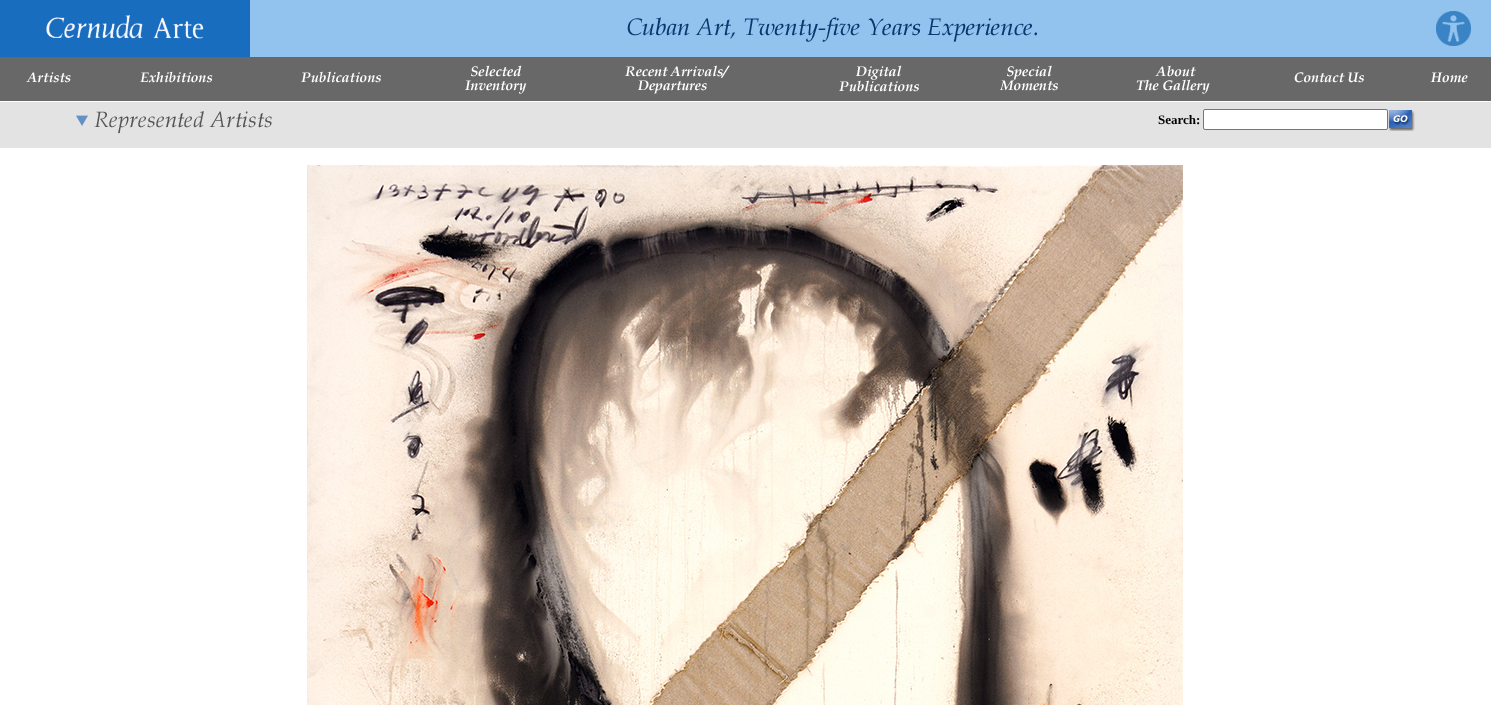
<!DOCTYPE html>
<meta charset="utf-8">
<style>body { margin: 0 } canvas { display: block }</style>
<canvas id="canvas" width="1491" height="705"></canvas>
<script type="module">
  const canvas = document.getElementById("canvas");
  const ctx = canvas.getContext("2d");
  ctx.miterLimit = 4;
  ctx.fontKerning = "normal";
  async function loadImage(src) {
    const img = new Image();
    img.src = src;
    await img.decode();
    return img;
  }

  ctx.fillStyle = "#ffffff";
  ctx.fillRect(0, 0, 1491, 705);
  ctx.fillStyle = "#91c3ee";
  ctx.fillRect(250, 0, 1241, 57);
  ctx.drawImage(await loadImage("img1.png"), 0, 0, 250, 57);
  ctx.drawImage(await loadImage("img2.png"), 627, 17, 410, 25);
  ctx.drawImage(await loadImage("img3.png"), 1436, 11, 35, 35);
  ctx.fillStyle = "#686868";
  ctx.fillRect(0, 57, 1491, 44);
  ctx.drawImage(await loadImage("img4.png"), 26, 72, 45, 11);
  ctx.drawImage(await loadImage("img5.png"), 140, 71, 73, 12);
  ctx.drawImage(await loadImage("img6.png"), 301, 71, 80, 12);
  ctx.drawImage(await loadImage("img7.png"), 465, 65, 62, 29);
  ctx.drawImage(await loadImage("img8.png"), 625, 65, 105, 29);
  ctx.drawImage(await loadImage("img9.png"), 839, 65, 80, 27);
  ctx.drawImage(await loadImage("img10.png"), 1000, 65, 58, 26);
  ctx.drawImage(await loadImage("img11.png"), 1136, 65, 74, 29);
  ctx.drawImage(await loadImage("img12.png"), 1294, 72, 70, 11);
  ctx.drawImage(await loadImage("img13.png"), 1430, 72, 38, 11);
  ctx.fillStyle = "#e3e3e3";
  ctx.fillRect(0, 102, 1491, 46);
  ctx.drawImage(await loadImage("img14.png"), 76, 111, 196, 23);
  ctx.font = "bold 13px Liberation Serif";
  ctx.fillStyle = "#000000";
  ctx.fillText("Search:", 1158, 124);
  ctx.fillStyle = "#ffffff";
  ctx.beginPath();
  ctx.roundRect(1203.5, 109.5, 184, 20, 1.5);
  ctx.fill();
  ctx.strokeStyle = "#767676";
  ctx.stroke();
  ctx.drawImage(await loadImage("img15.png"), 1388, 110, 27, 21);
  ctx.drawImage(await loadImage("img16.png"), 307, 165, 876, 540);
</script>
